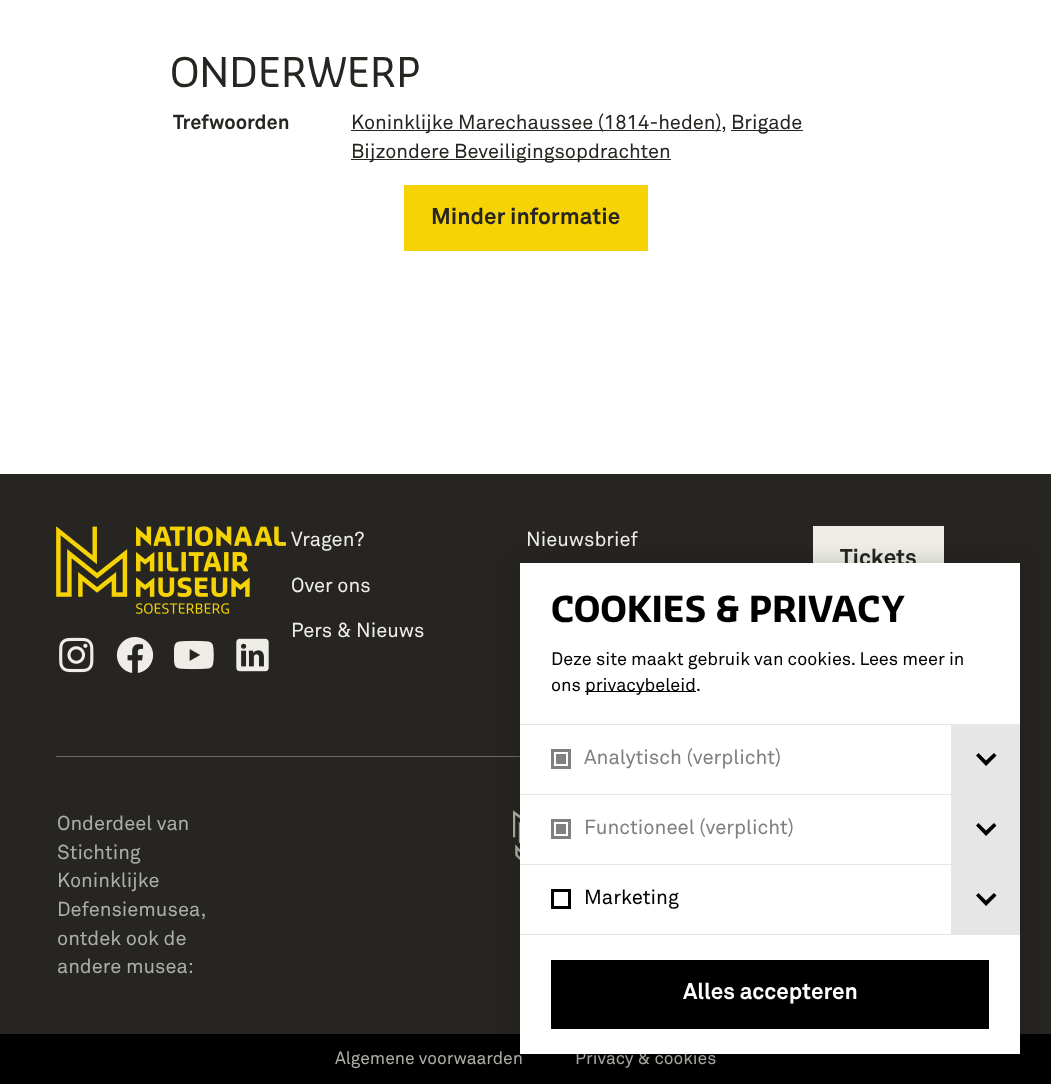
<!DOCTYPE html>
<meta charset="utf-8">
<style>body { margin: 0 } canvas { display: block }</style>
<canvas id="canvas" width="1051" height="1084"></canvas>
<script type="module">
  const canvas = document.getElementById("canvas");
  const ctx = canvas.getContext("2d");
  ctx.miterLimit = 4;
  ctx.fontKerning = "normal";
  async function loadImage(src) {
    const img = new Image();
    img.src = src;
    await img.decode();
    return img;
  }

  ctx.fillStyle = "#ffffff";
  ctx.fillRect(0, 0, 1051, 1084);
  ctx.font = "40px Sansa";
  ctx.fillStyle = "#262521";
  ctx.fillText("ONDERWERP", 170, 87);
  ctx.font = "bold 20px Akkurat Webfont";
  ctx.fillText("Trefwoorden", 173, 129);
  ctx.fillRect(351, 130, 370, 1);
  ctx.font = "20px Akkurat Webfont";
  ctx.fillText("Koninklijke Marechaussee (1814-heden)", 351, 129);
  ctx.fillText(",", 721, 129);
  ctx.fillRect(731, 130, 72, 1);
  ctx.fillText("Brigade", 731, 129);
  ctx.fillRect(351, 159, 320, 1);
  ctx.fillText("Bijzondere Beveiligingsopdrachten", 351, 158);
  ctx.fillStyle = "#f5d304";
  ctx.fillRect(404, 185, 244, 66);
  ctx.font = "bold 22.5px Akkurat Webfont";
  ctx.fillStyle = "#262521";
  ctx.fillText("Minder informatie", 431, 224);
  ctx.fillRect(0, 474, 1051, 560);
  ctx.drawImage(await loadImage("img1.png"), 56, 526, 230, 88);
  ctx.drawImage(await loadImage("img2.png"), 59, 637, 35, 36);
  ctx.drawImage(await loadImage("img3.png"), 116, 637, 38, 36);
  ctx.drawImage(await loadImage("img4.png"), 174, 640, 40, 30);
  ctx.drawImage(await loadImage("img5.png"), 236, 638, 33, 34);
  ctx.font = "20px Akkurat Webfont";
  ctx.fillStyle = "#eeede7";
  ctx.fillText("Vragen?", 291, 546);
  ctx.fillText("Over ons", 291, 592);
  ctx.fillText("Pers & Nieuws", 291, 637);
  ctx.fillText("Nieuwsbrief", 526, 546);
  ctx.fillRect(813, 526, 131, 37);
  ctx.font = "bold 22.5px Akkurat Webfont";
  ctx.fillStyle = "#262521";
  ctx.fillText("Tickets", 840, 565);
  ctx.fillStyle = "#6a6965";
  ctx.fillRect(56, 756, 464, 1);
  ctx.font = "20px Akkurat Webfont";
  ctx.fillStyle = "#adada8";
  ctx.fillText("Onderdeel van", 57, 830);
  ctx.fillText("Stichting", 57, 859);
  ctx.fillText("Koninklijke", 57, 887);
  ctx.fillText("Defensiemusea,", 57, 916);
  ctx.fillText("ontdek ook de", 57, 945);
  ctx.fillText("andere musea:", 57, 973);
  ctx.drawImage(await loadImage("img6.png"), 513, 810, 7, 50);
  ctx.fillStyle = "#000000";
  ctx.fillRect(0, 1034, 1051, 50);
  ctx.font = "17.5px Akkurat Webfont";
  ctx.fillStyle = "#adada8";
  ctx.fillText("Algemene voorwaarden", 335, 1064);
  ctx.fillText("Privacy & cookies", 575, 1064);
  ctx.fillStyle = "rgba(0, 0, 0, 0.15)";
  ctx.filter = "blur(9.5px)";
  ctx.beginPath();
  ctx.rect(518, 560, 505, 496);
  ctx.fill();
  ctx.filter = "none";
  ctx.fillStyle = "#ffffff";
  ctx.fillRect(520, 563, 500, 491);
  ctx.font = "bold 35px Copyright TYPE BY";
  ctx.fillStyle = "#000000";
  ctx.fillText("COOKIES & PRIVACY", 551, 622);
  ctx.font = "18px Akkurat Webfont";
  ctx.fillText("Deze site maakt gebruik van cookies. Lees meer in", 551, 665);
  ctx.fillText("ons", 551, 691);
  ctx.fillRect(585, 691, 111, 1);
  ctx.fillText("privacybeleid.", 585, 691);
  ctx.fillStyle = "#e6e6e6";
  ctx.fillRect(520, 934, 500, 1);
  ctx.fillRect(520, 724, 500, 1);
  ctx.strokeStyle = "#808080";
  ctx.lineWidth = 3;
  ctx.strokeRect(552.5, 750.5, 17, 17);
  ctx.fillStyle = "#808080";
  ctx.fillRect(556, 754, 10, 10);
  ctx.font = "20.25px Akkurat Webfont";
  ctx.fillText("Analytisch (verplicht)", 584, 764);
  ctx.fillStyle = "#e6e6e6";
  ctx.fillRect(951, 725, 69, 69);
  ctx.fillStyle = "#000000";
  ctx.beginPath();
  ctx.moveTo(994, 753);
  ctx.lineTo(996.5, 755.5);
  ctx.lineTo(986, 766);
  ctx.lineTo(976, 755.5);
  ctx.lineTo(978.5, 753);
  ctx.lineTo(986, 760.5);
  ctx.closePath();
  ctx.fill();
  ctx.fillStyle = "#e6e6e6";
  ctx.fillRect(520, 794, 500, 1);
  ctx.strokeRect(552.5, 820.5, 17, 17);
  ctx.fillStyle = "#808080";
  ctx.fillRect(556, 824, 10, 10);
  ctx.fillText("Functioneel (verplicht)", 584, 834);
  ctx.fillStyle = "#e6e6e6";
  ctx.fillRect(951, 795, 69, 69);
  ctx.fillStyle = "#000000";
  ctx.beginPath();
  ctx.moveTo(994, 823);
  ctx.lineTo(996.5, 825.5);
  ctx.lineTo(986, 836);
  ctx.lineTo(976, 825.5);
  ctx.lineTo(978.5, 823);
  ctx.lineTo(986, 830.5);
  ctx.closePath();
  ctx.fill();
  ctx.fillStyle = "#e6e6e6";
  ctx.fillRect(520, 864, 500, 1);
  ctx.strokeStyle = "#000000";
  ctx.strokeRect(552.5, 890.5, 17, 17);
  ctx.fillStyle = "#000000";
  ctx.fillText("Marketing", 584, 904);
  ctx.fillStyle = "#e6e6e6";
  ctx.fillRect(951, 865, 69, 69);
  ctx.fillStyle = "#000000";
  ctx.beginPath();
  ctx.moveTo(994, 893);
  ctx.lineTo(996.5, 895.5);
  ctx.lineTo(986, 906);
  ctx.lineTo(976, 895.5);
  ctx.lineTo(978.5, 893);
  ctx.lineTo(986, 900.5);
  ctx.closePath();
  ctx.fill();
  ctx.fillRect(551, 960, 438, 69);
  ctx.font = "bold 22.5px Akkurat Webfont";
  ctx.fillStyle = "#ffffff";
  ctx.fillText("Alles accepteren", 683, 999);
</script>
